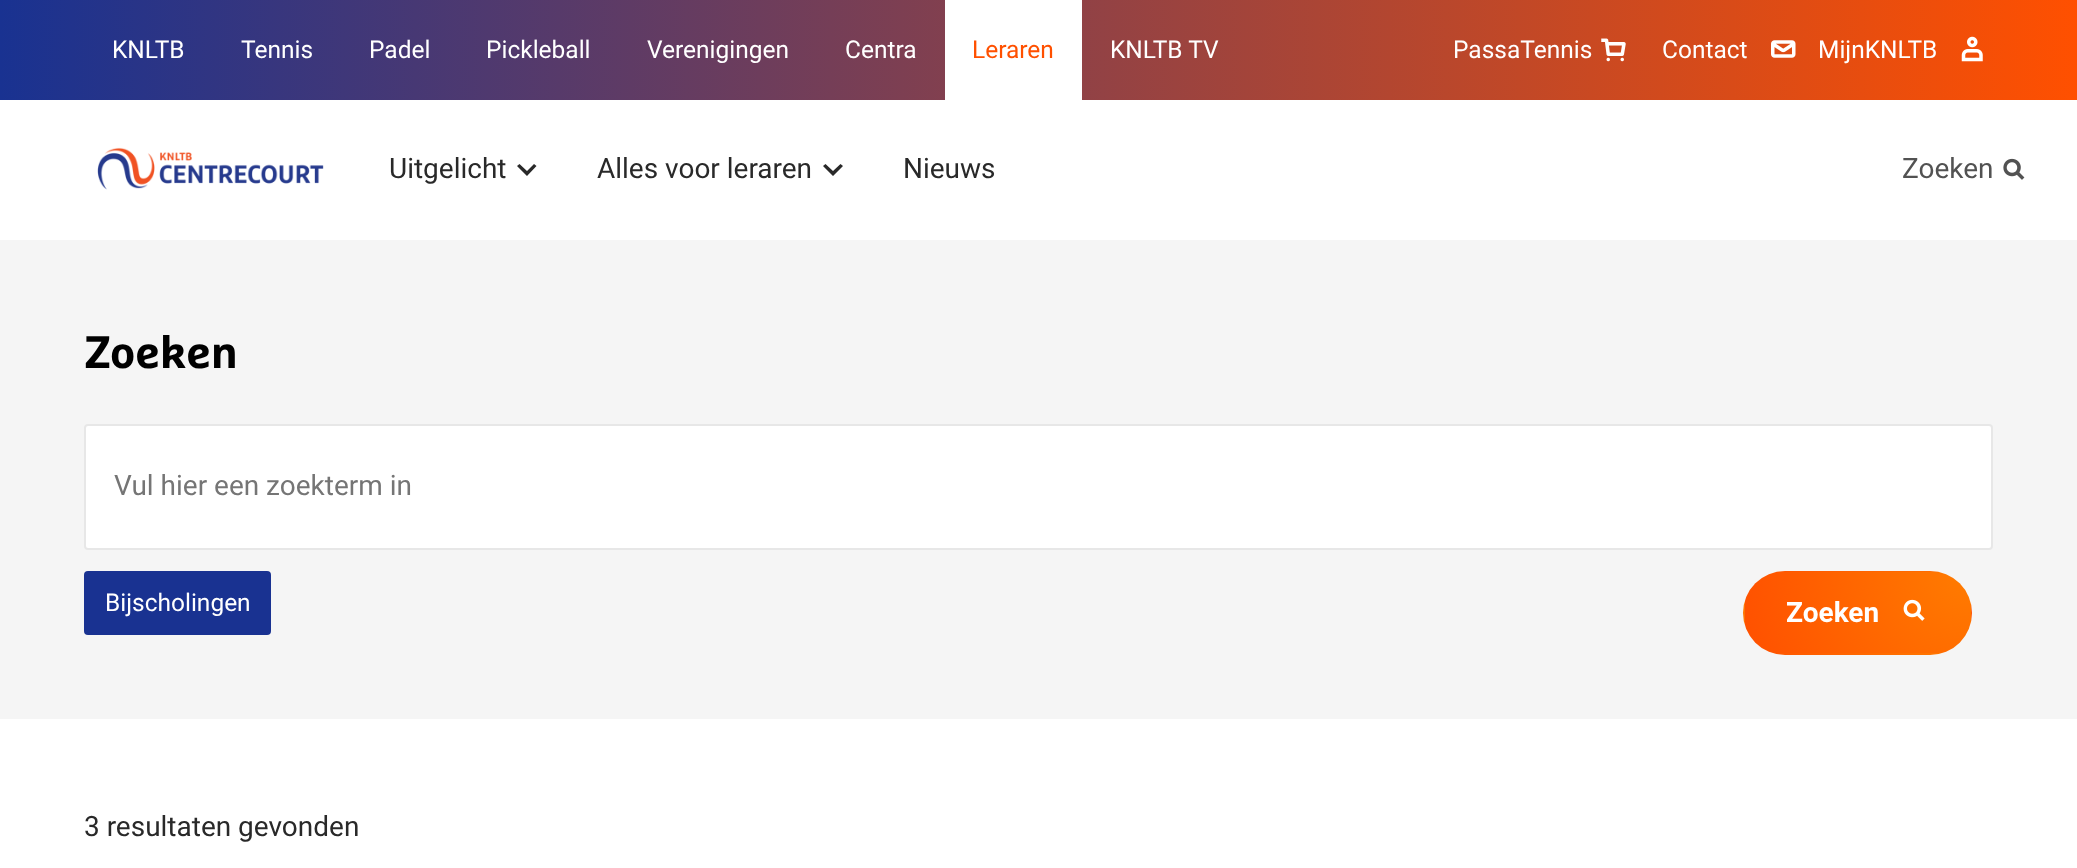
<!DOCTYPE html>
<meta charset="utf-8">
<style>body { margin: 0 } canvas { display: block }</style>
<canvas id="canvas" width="2077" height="868"></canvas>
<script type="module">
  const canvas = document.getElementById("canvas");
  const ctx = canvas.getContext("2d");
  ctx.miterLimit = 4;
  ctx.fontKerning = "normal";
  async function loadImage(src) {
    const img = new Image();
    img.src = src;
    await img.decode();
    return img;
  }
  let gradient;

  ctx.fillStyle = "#ffffff";
  ctx.fillRect(0, 0, 2077, 868);
  gradient = ctx.createLinearGradient(0, 50, 2077, 50);
  gradient.addColorStop(0, "#193291");
  gradient.addColorStop(1, "#ff5000");
  ctx.fillStyle = gradient;
  ctx.fillRect(0, 0, 2077, 100);
  ctx.font = "24.5px Roboto";
  ctx.fillStyle = "#ffffff";
  ctx.fillText("KNLTB", 112, 58);
  ctx.fillText("Tennis", 241, 58);
  ctx.fillText("Padel", 369, 58);
  ctx.fillText("Pickleball", 486, 58);
  ctx.fillText("Verenigingen", 647, 58);
  ctx.fillText("Centra", 845, 58);
  ctx.fillRect(945, 0, 137, 100);
  ctx.fillStyle = "#ff5000";
  ctx.fillText("Leraren", 972, 58);
  ctx.fillStyle = "#ffffff";
  ctx.fillText("KNLTB TV", 1110, 58);
  ctx.fillText("PassaTennis", 1453, 58);
  ctx.drawImage(await loadImage("img1.png"), 1601, 38, 25, 24);
  ctx.fillText("Contact", 1662, 58);
  ctx.drawImage(await loadImage("img2.png"), 1771, 40, 25, 18);
  ctx.fillText("MijnKNLTB", 1818, 58);
  ctx.drawImage(await loadImage("img3.png"), 1961, 36, 22, 26);
  ctx.drawImage(await loadImage("img4.png"), 97, 147, 227, 43);
  ctx.font = "28px Roboto";
  ctx.fillStyle = "#292929";
  ctx.fillText("Uitgelicht", 389, 178);
  ctx.beginPath();
  ctx.moveTo(519.5, 164);
  ctx.lineTo(527, 171);
  ctx.lineTo(534, 164);
  ctx.lineTo(536.5, 166);
  ctx.lineTo(527, 176);
  ctx.lineTo(517, 166);
  ctx.closePath();
  ctx.fill();
  ctx.fillText("Alles voor leraren", 597, 178);
  ctx.beginPath();
  ctx.moveTo(825.5, 164);
  ctx.lineTo(833, 171);
  ctx.lineTo(840.5, 164);
  ctx.lineTo(843, 166);
  ctx.lineTo(833, 176);
  ctx.lineTo(823, 166);
  ctx.closePath();
  ctx.fill();
  ctx.fillText("Nieuws", 903, 178);
  ctx.fillStyle = "#525252";
  ctx.fillText("Zoeken", 1902, 178);
  ctx.drawImage(await loadImage("img5.png"), 2003, 158, 22, 22);
  ctx.fillStyle = "#f5f5f5";
  ctx.fillRect(0, 240, 2077, 479);
  ctx.font = "bold 45.5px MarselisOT";
  ctx.fillStyle = "#000000";
  ctx.fillText("Zoeken", 84, 368);
  ctx.fillStyle = "#ffffff";
  ctx.beginPath();
  ctx.roundRect(85, 425, 1907, 124, 3);
  ctx.fill();
  ctx.strokeStyle = "#e7e7e7";
  ctx.lineWidth = 2;
  ctx.stroke();
  ctx.font = "28px Roboto";
  ctx.fillStyle = "#757575";
  ctx.fillText("Vul hier een zoekterm in", 114, 495);
  ctx.fillStyle = "#193291";
  ctx.beginPath();
  ctx.roundRect(84, 571, 187, 64, 4);
  ctx.fill();
  ctx.font = "24.5px Roboto";
  ctx.fillStyle = "#ffffff";
  ctx.fillText("Bijscholingen", 105, 611);
  ctx.save();
  ctx.beginPath();
  ctx.roundRect(1743, 571, 229, 84, 42);
  ctx.clip();
  gradient = ctx.createRadialGradient(1971, 492, 0, 1971, 492, 240);
  gradient.addColorStop(0, "#ff7c00");
  gradient.addColorStop(1, "#ff5000");
  ctx.fillStyle = gradient;
  ctx.fillRect(1776, 571, 163, 1);
  gradient = ctx.createRadialGradient(1745, 572, 0, 1745, 572, 240);
  gradient.addColorStop(0, "#ff7c00");
  gradient.addColorStop(1, "#ff5000");
  ctx.fillStyle = gradient;
  ctx.fillRect(1743, 600, 2, 26);
  gradient = ctx.createRadialGradient(1971, 572, 0, 1971, 572, 240);
  gradient.addColorStop(0, "#ff7c00");
  gradient.addColorStop(1, "#ff5000");
  ctx.fillStyle = gradient;
  ctx.fillRect(1745, 572, 226, 81);
  gradient = ctx.createRadialGradient(2196, 572, 0, 2196, 572, 240);
  gradient.addColorStop(0, "#ff7c00");
  gradient.addColorStop(1, "#ff5000");
  ctx.fillStyle = gradient;
  ctx.fillRect(1971, 604, 1, 18);
  gradient = ctx.createRadialGradient(1971, 653, 0, 1971, 653, 240);
  gradient.addColorStop(0, "#ff7c00");
  gradient.addColorStop(1, "#ff5000");
  ctx.fillStyle = gradient;
  ctx.fillRect(1772, 653, 171, 2);
  ctx.restore();
  ctx.font = "bold 28px Roboto";
  ctx.fillText("Zoeken", 1786, 622);
  ctx.drawImage(await loadImage("img6.png"), 1903, 599, 22, 22);
  ctx.font = "28px Roboto";
  ctx.fillStyle = "#292929";
  ctx.fillText("3 resultaten gevonden", 84, 836);
</script>
